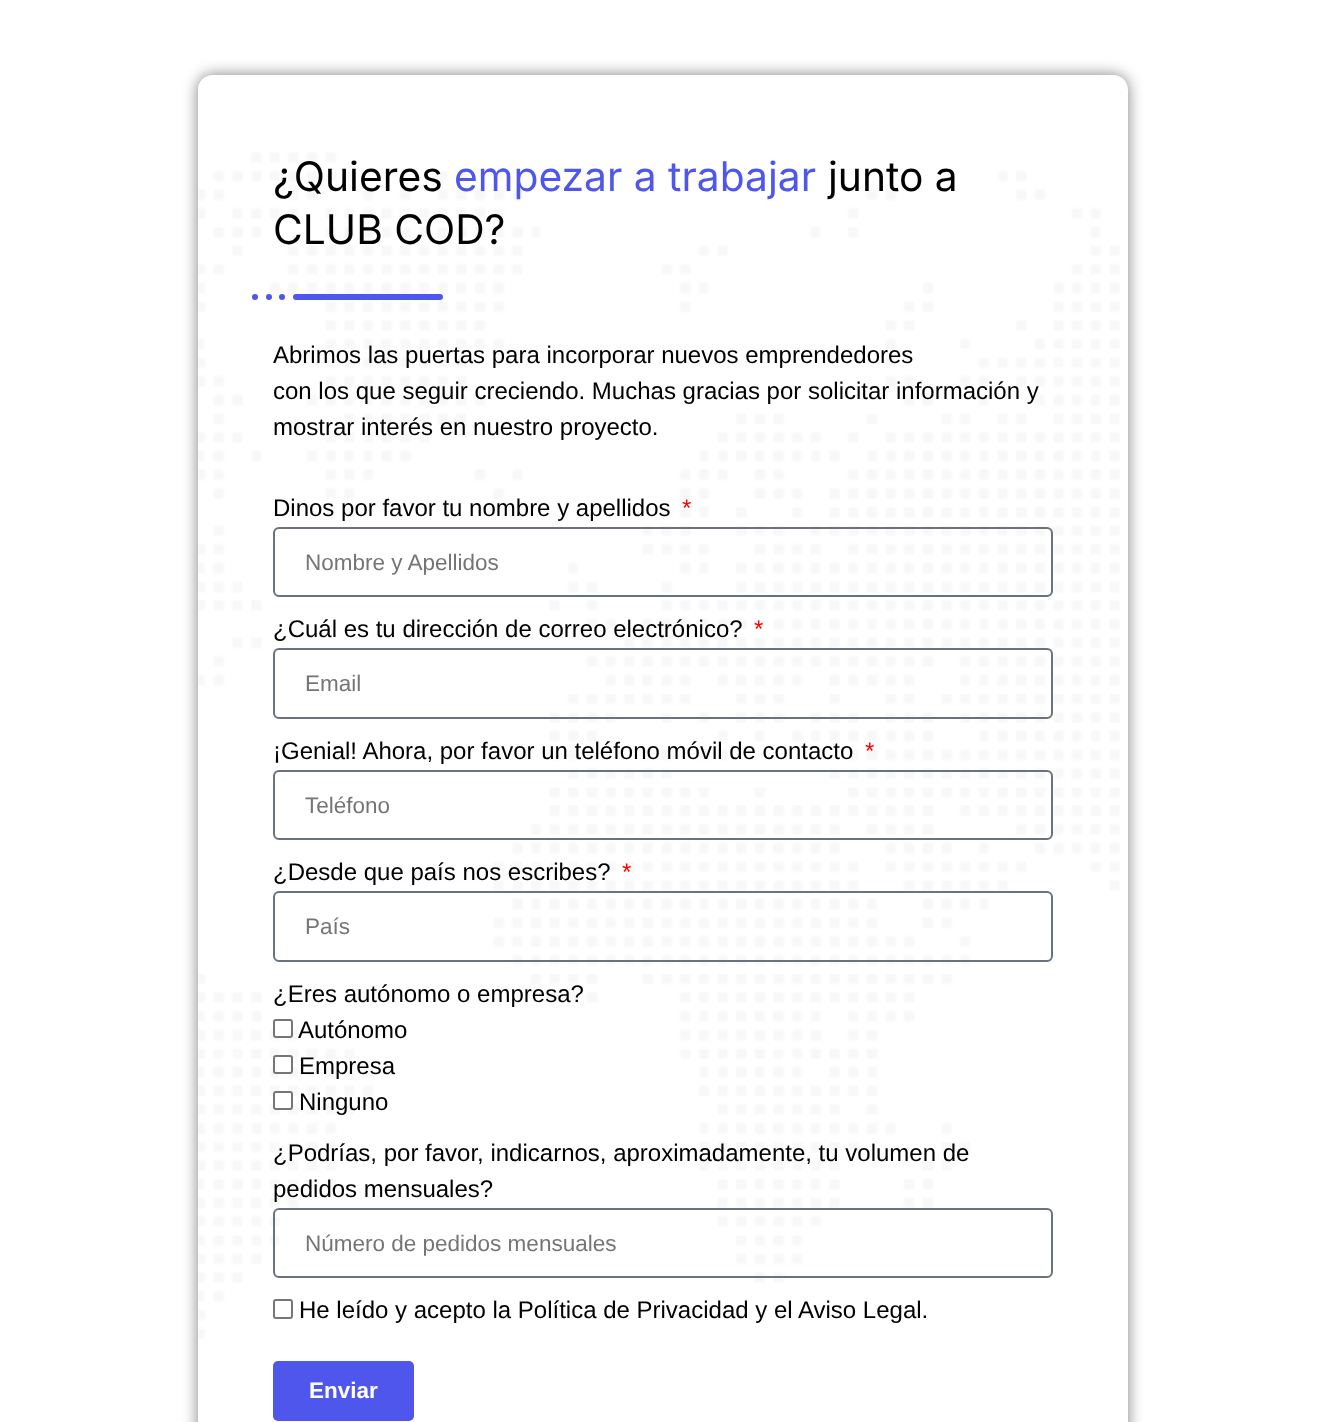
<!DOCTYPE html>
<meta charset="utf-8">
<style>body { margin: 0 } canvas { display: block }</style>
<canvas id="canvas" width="1325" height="1422"></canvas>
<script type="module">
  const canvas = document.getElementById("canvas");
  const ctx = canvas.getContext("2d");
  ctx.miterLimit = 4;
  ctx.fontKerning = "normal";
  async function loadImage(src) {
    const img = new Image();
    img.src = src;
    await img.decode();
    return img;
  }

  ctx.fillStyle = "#ffffff";
  ctx.fillRect(0, 0, 1325, 1422);
  ctx.save();
  ctx.beginPath();
  ctx.moveTo(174, 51);
  ctx.lineTo(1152, 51);
  ctx.lineTo(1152, 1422);
  ctx.lineTo(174, 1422);
  ctx.closePath();
  ctx.moveTo(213, 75);
  ctx.lineTo(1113, 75);
  ctx.bezierCurveTo(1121.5, 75, 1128, 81.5, 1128, 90);
  ctx.lineTo(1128, 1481);
  ctx.bezierCurveTo(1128, 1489.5, 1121.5, 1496, 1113, 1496);
  ctx.lineTo(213, 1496);
  ctx.bezierCurveTo(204.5, 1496, 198, 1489.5, 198, 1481);
  ctx.lineTo(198, 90);
  ctx.bezierCurveTo(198, 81.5, 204.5, 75, 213, 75);
  ctx.closePath();
  ctx.clip("evenodd");
  ctx.fillStyle = "rgba(0, 0, 0, 0.5)";
  ctx.filter = "blur(7.5px)";
  ctx.beginPath();
  ctx.roundRect(198, 75, 930, 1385, 15);
  ctx.fill();
  ctx.filter = "none";
  ctx.restore();
  ctx.drawImage(await loadImage("img1.png"), 198, 152, 922, 1187);
  ctx.font = "40.75px Inter";
  ctx.fillStyle = "#000000";
  ctx.fillText("¿Quieres", 273, 191);
  ctx.fillStyle = "#4f56eb";
  ctx.fillText("empezar a trabajar", 454, 191);
  ctx.fillStyle = "#000000";
  ctx.fillText("junto a", 828, 191);
  ctx.fillText("CLUB COD?", 273, 244);
  ctx.fillStyle = "#4f56eb";
  ctx.beginPath();
  ctx.roundRect(293, 294, 150, 6, 3);
  ctx.fill();
  ctx.beginPath();
  ctx.arc(282, 297, 3, 0, Math.PI * 2);
  ctx.fill();
  ctx.beginPath();
  ctx.arc(269, 297, 3, 0, Math.PI * 2);
  ctx.fill();
  ctx.beginPath();
  ctx.arc(255, 297, 3, 0, Math.PI * 2);
  ctx.fill();
  ctx.font = "24px Liberation Sans";
  ctx.fillStyle = "#000000";
  ctx.fillText("Abrimos las puertas para incorporar nuevos emprendedores", 273, 363);
  ctx.fillText("con los que seguir creciendo. Muchas gracias por solicitar información y", 273, 399);
  ctx.fillText("mostrar interés en nuestro proyecto.", 273, 435);
  ctx.fillText("Dinos por favor tu nombre y apellidos", 273, 516);
  ctx.fillStyle = "#ff0000";
  ctx.fillText("*", 682, 516);
  ctx.beginPath();
  ctx.roundRect(274, 528, 778, 68, 5);
  ctx.strokeStyle = "#69727d";
  ctx.lineWidth = 2;
  ctx.stroke();
  ctx.font = "22.5px Liberation Sans";
  ctx.fillStyle = "#757575";
  ctx.fillText("Nombre y Apellidos", 305, 570);
  ctx.font = "24px Liberation Sans";
  ctx.fillStyle = "#000000";
  ctx.fillText("¿Cuál es tu dirección de correo electrónico?", 273, 637);
  ctx.fillStyle = "#ff0000";
  ctx.fillText("*", 754, 637);
  ctx.beginPath();
  ctx.roundRect(274, 649, 778, 69, 5);
  ctx.stroke();
  ctx.font = "22.5px Liberation Sans";
  ctx.fillStyle = "#757575";
  ctx.fillText("Email", 305, 691);
  ctx.font = "24px Liberation Sans";
  ctx.fillStyle = "#000000";
  ctx.fillText("¡Genial! Ahora, por favor un teléfono móvil de contacto", 273, 759);
  ctx.fillStyle = "#ff0000";
  ctx.fillText("*", 865, 759);
  ctx.beginPath();
  ctx.roundRect(274, 771, 778, 68, 5);
  ctx.stroke();
  ctx.font = "22.5px Liberation Sans";
  ctx.fillStyle = "#757575";
  ctx.fillText("Teléfono", 305, 813);
  ctx.font = "24px Liberation Sans";
  ctx.fillStyle = "#000000";
  ctx.fillText("¿Desde que país nos escribes?", 273, 880);
  ctx.fillStyle = "#ff0000";
  ctx.fillText("*", 622, 880);
  ctx.beginPath();
  ctx.roundRect(274, 892, 778, 69, 5);
  ctx.stroke();
  ctx.font = "22.5px Liberation Sans";
  ctx.fillStyle = "#757575";
  ctx.fillText("País", 305, 934);
  ctx.font = "24px Liberation Sans";
  ctx.fillStyle = "#000000";
  ctx.fillText("¿Eres autónomo o empresa?", 273, 1002);
  ctx.fillStyle = "#ffffff";
  ctx.beginPath();
  ctx.roundRect(274, 1020, 18, 17, 2);
  ctx.fill();
  ctx.strokeStyle = "#767676";
  ctx.stroke();
  ctx.fillStyle = "#000000";
  ctx.fillText("Autónomo", 298, 1038);
  ctx.fillStyle = "#ffffff";
  ctx.beginPath();
  ctx.roundRect(274, 1056, 18, 17, 2);
  ctx.fill();
  ctx.stroke();
  ctx.fillStyle = "#000000";
  ctx.fillText("Empresa", 299, 1074);
  ctx.fillStyle = "#ffffff";
  ctx.beginPath();
  ctx.roundRect(274, 1092, 18, 17, 2);
  ctx.fill();
  ctx.stroke();
  ctx.fillStyle = "#000000";
  ctx.fillText("Ninguno", 299, 1110);
  ctx.fillText("¿Podrías, por favor, indicarnos, aproximadamente, tu volumen de", 273, 1161);
  ctx.fillText("pedidos mensuales?", 273, 1197);
  ctx.beginPath();
  ctx.roundRect(274, 1209, 778, 68, 5);
  ctx.strokeStyle = "#69727d";
  ctx.stroke();
  ctx.font = "22.5px Liberation Sans";
  ctx.fillStyle = "#757575";
  ctx.fillText("Número de pedidos mensuales", 305, 1251);
  ctx.beginPath();
  ctx.roundRect(274, 1300, 18, 18, 2);
  ctx.strokeStyle = "#767676";
  ctx.stroke();
  ctx.font = "24px Liberation Sans";
  ctx.fillStyle = "#000000";
  ctx.fillText("He leído y acepto la Política de Privacidad y el Aviso Legal.", 299, 1318);
  ctx.fillStyle = "#4f56eb";
  ctx.beginPath();
  ctx.roundRect(273, 1361, 141, 60, 5);
  ctx.fill();
  ctx.font = "bold 22.5px Liberation Sans";
  ctx.fillStyle = "#ffffff";
  ctx.fillText("Enviar", 309, 1398);
</script>
